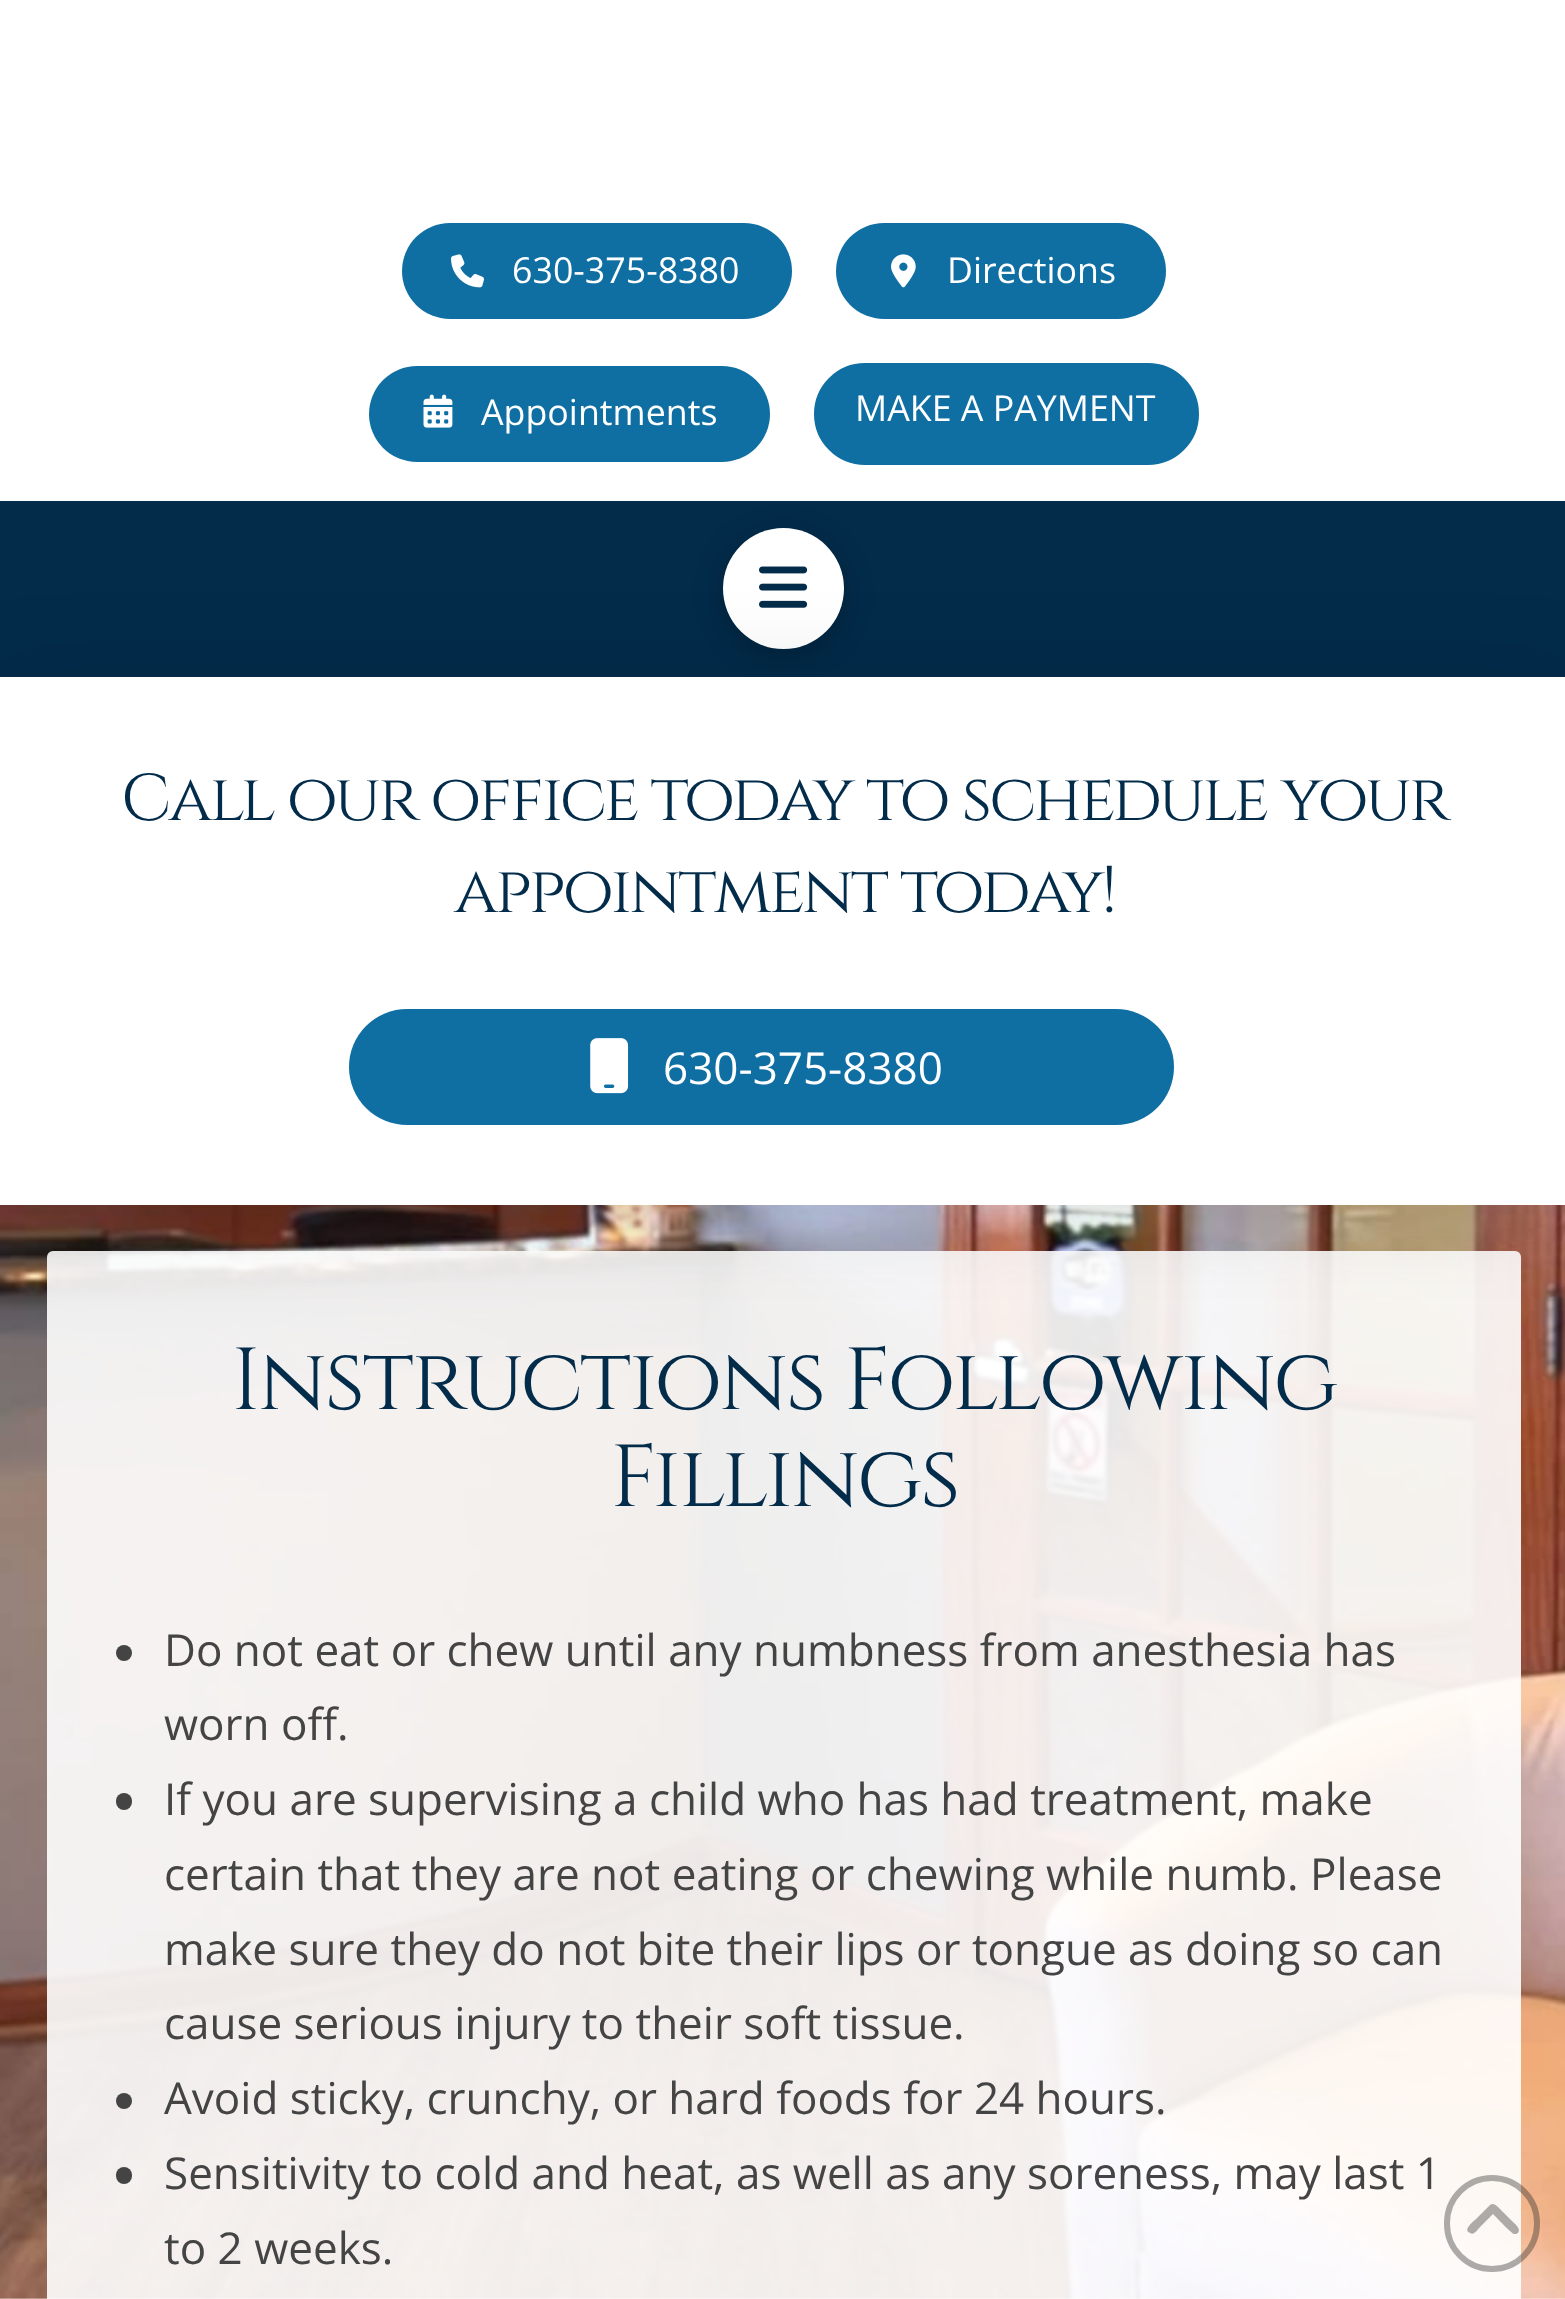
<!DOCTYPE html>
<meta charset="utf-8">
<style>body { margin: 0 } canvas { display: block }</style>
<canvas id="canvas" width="1565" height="2299"></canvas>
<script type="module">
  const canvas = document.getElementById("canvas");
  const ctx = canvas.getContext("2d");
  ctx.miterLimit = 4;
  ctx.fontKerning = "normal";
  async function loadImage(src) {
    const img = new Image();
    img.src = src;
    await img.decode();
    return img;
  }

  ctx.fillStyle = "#ffffff";
  ctx.fillRect(0, 0, 1565, 2299);
  ctx.fillStyle = "#0f6fa3";
  ctx.beginPath();
  ctx.roundRect(402, 223, 390, 96, 48);
  ctx.fill();
  ctx.drawImage(await loadImage("img1.png"), 451, 254, 33, 34);
  ctx.font = "35.75px Open Sans";
  ctx.fillStyle = "#ffffff";
  ctx.fillText("630-375-8380", 512, 283);
  ctx.fillStyle = "#0f6fa3";
  ctx.beginPath();
  ctx.roundRect(836, 223, 330, 96, 48);
  ctx.fill();
  ctx.drawImage(await loadImage("img2.png"), 891, 254, 25, 34);
  ctx.fillStyle = "#ffffff";
  ctx.fillText("Directions", 947, 283);
  ctx.fillStyle = "#0f6fa3";
  ctx.beginPath();
  ctx.roundRect(369, 366, 401, 96, 48);
  ctx.fill();
  ctx.drawImage(await loadImage("img3.png"), 423, 394, 30, 34);
  ctx.fillStyle = "#ffffff";
  ctx.fillText("Appointments", 481, 425);
  ctx.fillStyle = "#0f6fa3";
  ctx.beginPath();
  ctx.roundRect(815.5, 364.5, 382, 99, 49.5);
  ctx.fill();
  ctx.strokeStyle = "#0f6fa3";
  ctx.lineWidth = 3;
  ctx.stroke();
  ctx.fillStyle = "#ffffff";
  ctx.fillText("MAKE A PAYMENT", 855, 421);
  ctx.fillStyle = "#032c4b";
  ctx.fillRect(0, 501, 1565, 176);
  ctx.fillStyle = "rgba(0, 0, 0, 0.25)";
  ctx.filter = "blur(14.5px)";
  ctx.beginPath();
  ctx.roundRect(723, 534, 121, 121, 60.5);
  ctx.fill();
  ctx.filter = "none";
  ctx.fillStyle = "#ffffff";
  ctx.beginPath();
  ctx.arc(783.5, 588.5, 60.5, 0, Math.PI * 2);
  ctx.fill();
  ctx.drawImage(await loadImage("img4.png"), 759, 566, 49, 42);
  ctx.drawImage(await loadImage("img6.png"), 0, 1205, 1565, 1094);
  ctx.fillStyle = "rgba(255, 255, 255, 0.9)";
  ctx.beginPath();
  ctx.roundRect(47, 1251, 1474, 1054, 6);
  ctx.fill();
  ctx.fillStyle = "rgba(0, 0, 0, 0.15)";
  ctx.filter = "blur(44px)";
  ctx.beginPath();
  ctx.rect(0, 682, 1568, 528);
  ctx.fill();
  ctx.filter = "none";
  ctx.fillStyle = "#ffffff";
  ctx.fillRect(0, 677, 1565, 528);
  ctx.letterSpacing = "-2.75px";
  ctx.font = "66px Cinzel";
  ctx.fillStyle = "#032c4b";
  ctx.fillText("Call our office today to schedule your", 121, 820);
  ctx.fillText("appointment today!", 454, 912);
  ctx.fillStyle = "#0f6fa3";
  ctx.beginPath();
  ctx.roundRect(349, 1009, 825, 116, 58);
  ctx.fill();
  ctx.drawImage(await loadImage("img5.png"), 590, 1038, 39, 56);
  ctx.letterSpacing = "0px";
  ctx.font = "44px Open Sans";
  ctx.fillStyle = "#ffffff";
  ctx.fillText("630-375-8380", 663, 1084);
  ctx.letterSpacing = "-2.4px";
  ctx.font = "88px Cinzel";
  ctx.fillStyle = "#032c4b";
  ctx.fillText("Instructions Following", 231, 1409);
  ctx.fillText("Fillings", 610, 1506);
  ctx.fillStyle = "#444444";
  ctx.beginPath();
  ctx.arc(124, 1653, 8, 0, Math.PI * 2);
  ctx.fill();
  ctx.letterSpacing = "0px";
  ctx.font = "44px Open Sans";
  ctx.fillText("Do not eat or chew until any numbness from anesthesia has", 164, 1666);
  ctx.fillText("worn off.", 164, 1740);
  ctx.beginPath();
  ctx.roundRect(116, 1793, 16, 17, 8);
  ctx.fill();
  ctx.fillText("If you are supervising a child who has had treatment, make", 164, 1815);
  ctx.fillText("certain that they are not eating or chewing while numb. Please", 164, 1890);
  ctx.fillText("make sure they do not bite their lips or tongue as doing so can", 164, 1965);
  ctx.fillText("cause serious injury to their soft tissue.", 164, 2039);
  ctx.beginPath();
  ctx.arc(124, 2101, 8, 0, Math.PI * 2);
  ctx.fill();
  ctx.fillText("Avoid sticky, crunchy, or hard foods for 24 hours.", 164, 2114);
  ctx.beginPath();
  ctx.roundRect(116, 2167, 16, 17, 8);
  ctx.fill();
  ctx.fillText("Sensitivity to cold and heat, as well as any soreness, may last 1", 164, 2189);
  ctx.fillText("to 2 weeks.", 164, 2264);
  ctx.beginPath();
  ctx.roundRect(1447, 2178, 90, 91, 45);
  ctx.strokeStyle = "rgba(39, 39, 39, 0.38)";
  ctx.lineWidth = 6;
  ctx.stroke();
  ctx.fillStyle = "#adaaa7";
  ctx.beginPath();
  ctx.moveTo(1490, 2205);
  ctx.bezierCurveTo(1494, 2202, 1497, 2206, 1500, 2209);
  ctx.lineTo(1514, 2223);
  ctx.bezierCurveTo(1516, 2225, 1521, 2229, 1518, 2233);
  ctx.bezierCurveTo(1517, 2234, 1515, 2234, 1514, 2234);
  ctx.bezierCurveTo(1511, 2233, 1496, 2217, 1493, 2214);
  ctx.lineTo(1481, 2226);
  ctx.bezierCurveTo(1478, 2229, 1474, 2236, 1470, 2233);
  ctx.bezierCurveTo(1462, 2230, 1474, 2221, 1476, 2219);
  ctx.closePath();
  ctx.fill();
</script>
